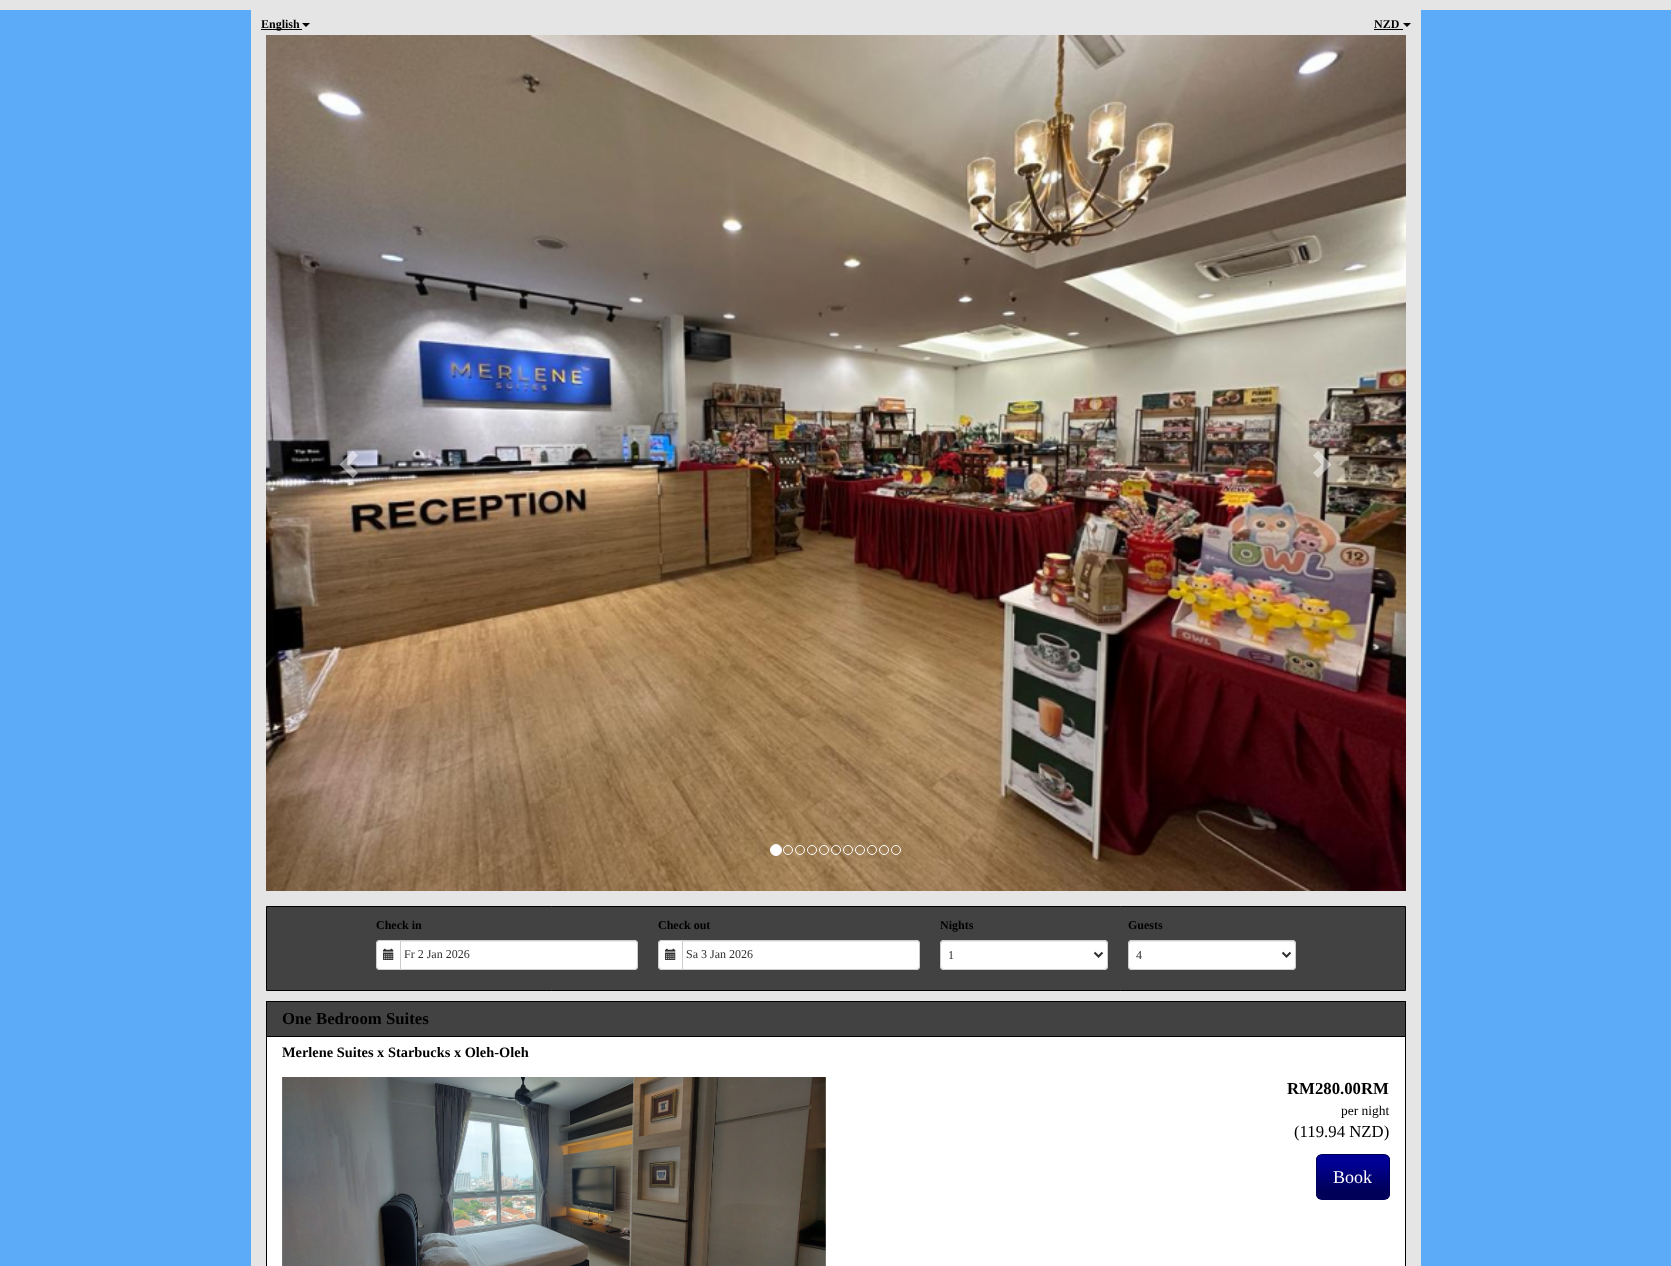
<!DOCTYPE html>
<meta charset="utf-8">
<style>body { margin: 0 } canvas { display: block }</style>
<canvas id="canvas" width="1671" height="1266"></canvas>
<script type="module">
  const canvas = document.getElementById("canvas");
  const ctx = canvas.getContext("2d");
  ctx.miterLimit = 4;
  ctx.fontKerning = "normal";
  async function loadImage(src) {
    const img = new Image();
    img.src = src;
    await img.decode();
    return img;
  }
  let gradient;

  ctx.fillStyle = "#5cabf9";
  ctx.fillRect(0, 0, 1671, 1266);
  ctx.fillStyle = "#e5e5e5";
  ctx.fillRect(251, 10, 1170, 1256);
  ctx.fillStyle = "#000000";
  ctx.fillRect(261, 29, 41, 1);
  ctx.font = "bold 12px Liberation Serif";
  ctx.fillText("English", 261, 28);
  ctx.beginPath();
  ctx.moveTo(302, 23);
  ctx.lineTo(310, 23);
  ctx.lineTo(306, 27);
  ctx.closePath();
  ctx.fill();
  ctx.fillText("NZD", 1374, 28);
  ctx.fillRect(1374, 29, 29, 1);
  ctx.beginPath();
  ctx.moveTo(1403, 23);
  ctx.lineTo(1411, 23);
  ctx.lineTo(1407, 27);
  ctx.closePath();
  ctx.fill();
  ctx.fillStyle = "#e5e5e5";
  ctx.fillRect(0, 0, 1671, 10);
  ctx.drawImage(await loadImage("img1.png"), 266, 35, 1140, 856);
  ctx.fillStyle = "rgba(255, 255, 255, 0.5)";
  ctx.beginPath();
  ctx.moveTo(358, 455.5);
  ctx.lineTo(349.5, 464.5);
  ctx.lineTo(358, 473);
  ctx.lineTo(353, 478);
  ctx.lineTo(339.5, 464.5);
  ctx.lineTo(353, 450.5);
  ctx.closePath();
  ctx.fill();
  ctx.beginPath();
  ctx.moveTo(1331.5, 464.5);
  ctx.lineTo(1318, 478);
  ctx.lineTo(1313, 473);
  ctx.lineTo(1321.5, 464.5);
  ctx.lineTo(1313, 455.5);
  ctx.lineTo(1318, 450.5);
  ctx.closePath();
  ctx.fill();
  ctx.fillStyle = "#ffffff";
  ctx.beginPath();
  ctx.arc(776, 850, 5.5, 0, Math.PI * 2);
  ctx.fill();
  ctx.strokeStyle = "#ffffff";
  ctx.stroke();
  ctx.beginPath();
  ctx.arc(788, 850, 4.5, 0, Math.PI * 2);
  ctx.stroke();
  ctx.beginPath();
  ctx.arc(800, 850, 4.5, 0, Math.PI * 2);
  ctx.stroke();
  ctx.beginPath();
  ctx.arc(812, 850, 4.5, 0, Math.PI * 2);
  ctx.stroke();
  ctx.beginPath();
  ctx.arc(824, 850, 4.5, 0, Math.PI * 2);
  ctx.stroke();
  ctx.beginPath();
  ctx.arc(836, 850, 4.5, 0, Math.PI * 2);
  ctx.stroke();
  ctx.beginPath();
  ctx.arc(848, 850, 4.5, 0, Math.PI * 2);
  ctx.stroke();
  ctx.beginPath();
  ctx.arc(860, 850, 4.5, 0, Math.PI * 2);
  ctx.stroke();
  ctx.beginPath();
  ctx.arc(872, 850, 4.5, 0, Math.PI * 2);
  ctx.stroke();
  ctx.beginPath();
  ctx.arc(884, 850, 4.5, 0, Math.PI * 2);
  ctx.stroke();
  ctx.beginPath();
  ctx.arc(896, 850, 4.5, 0, Math.PI * 2);
  ctx.stroke();
  ctx.fillStyle = "#424242";
  ctx.beginPath();
  ctx.rect(266.5, 906.5, 1139, 84);
  ctx.fill();
  ctx.strokeStyle = "#000000";
  ctx.stroke();
  ctx.fillStyle = "#000000";
  ctx.fillText("Check in", 376, 929);
  ctx.fillStyle = "#ffffff";
  ctx.beginPath();
  ctx.roundRect(376, 940, 24, 30, [4, 0, 0, 4]);
  ctx.fill();
  ctx.fillStyle = "#cccccc";
  ctx.beginPath();
  ctx.moveTo(380, 940);
  ctx.lineTo(400, 940);
  ctx.lineTo(400, 970);
  ctx.lineTo(380, 970);
  ctx.bezierCurveTo(378, 970, 376, 968, 376, 966);
  ctx.lineTo(376, 944);
  ctx.bezierCurveTo(376, 942, 378, 940, 380, 940);
  ctx.closePath();
  ctx.moveTo(380, 941);
  ctx.lineTo(400, 941);
  ctx.lineTo(400, 969);
  ctx.lineTo(380, 969);
  ctx.bezierCurveTo(378.5, 969, 377, 967.5, 377, 966);
  ctx.lineTo(377, 944);
  ctx.bezierCurveTo(377, 942.5, 378.5, 941, 380, 941);
  ctx.closePath();
  ctx.fill("evenodd");
  ctx.drawImage(await loadImage("img2.png"), 383, 948, 11, 12);
  ctx.fillStyle = "#ffffff";
  ctx.beginPath();
  ctx.roundRect(400, 940, 238, 30, [0, 4, 4, 0]);
  ctx.fill();
  ctx.fillStyle = "#ececec";
  ctx.beginPath();
  ctx.moveTo(401, 942);
  ctx.lineTo(635, 942);
  ctx.lineTo(637, 943);
  ctx.lineTo(637, 945);
  ctx.bezierCurveTo(637, 943, 636, 941, 634, 941);
  ctx.lineTo(401, 941);
  ctx.closePath();
  ctx.fill();
  ctx.beginPath();
  ctx.roundRect(400.5, 940.5, 237, 29, [0, 3.5, 3.5, 0]);
  ctx.strokeStyle = "#cccccc";
  ctx.stroke();
  ctx.font = "12px Liberation Serif";
  ctx.fillStyle = "#2f2f2f";
  ctx.fillText("Fr 2 Jan 2026", 404, 958);
  ctx.font = "bold 12px Liberation Serif";
  ctx.fillStyle = "#000000";
  ctx.fillText("Check out", 658, 929);
  ctx.fillStyle = "#ffffff";
  ctx.beginPath();
  ctx.roundRect(658, 940, 24, 30, [4, 0, 0, 4]);
  ctx.fill();
  ctx.fillStyle = "#cccccc";
  ctx.beginPath();
  ctx.moveTo(662, 940);
  ctx.lineTo(682, 940);
  ctx.lineTo(682, 970);
  ctx.lineTo(662, 970);
  ctx.bezierCurveTo(660, 970, 658, 968, 658, 966);
  ctx.lineTo(658, 944);
  ctx.bezierCurveTo(658, 942, 660, 940, 662, 940);
  ctx.closePath();
  ctx.moveTo(662, 941);
  ctx.lineTo(682, 941);
  ctx.lineTo(682, 969);
  ctx.lineTo(662, 969);
  ctx.bezierCurveTo(660.5, 969, 659, 967.5, 659, 966);
  ctx.lineTo(659, 944);
  ctx.bezierCurveTo(659, 942.5, 660.5, 941, 662, 941);
  ctx.closePath();
  ctx.fill("evenodd");
  ctx.drawImage(await loadImage("img2.png"), 665, 948, 11, 12);
  ctx.fillStyle = "#ffffff";
  ctx.beginPath();
  ctx.roundRect(682, 940, 238, 30, [0, 4, 4, 0]);
  ctx.fill();
  ctx.fillStyle = "#ececec";
  ctx.beginPath();
  ctx.moveTo(683, 942);
  ctx.lineTo(917, 942);
  ctx.lineTo(919, 943);
  ctx.lineTo(919, 945);
  ctx.bezierCurveTo(919, 943, 918, 941, 916, 941);
  ctx.lineTo(683, 941);
  ctx.closePath();
  ctx.fill();
  ctx.beginPath();
  ctx.roundRect(682.5, 940.5, 237, 29, [0, 3.5, 3.5, 0]);
  ctx.stroke();
  ctx.font = "12px Liberation Serif";
  ctx.fillStyle = "#2f2f2f";
  ctx.fillText("Sa 3 Jan 2026", 686, 958);
  ctx.font = "bold 12px Liberation Serif";
  ctx.fillStyle = "#000000";
  ctx.fillText("Nights", 940, 929);
  ctx.fillStyle = "#ffffff";
  ctx.beginPath();
  ctx.roundRect(940, 940, 168, 30, 4);
  ctx.fill();
  ctx.fillStyle = "#ececec";
  ctx.beginPath();
  ctx.moveTo(944, 942);
  ctx.lineTo(1104, 942);
  ctx.bezierCurveTo(1106, 942, 1107, 943, 1107, 945);
  ctx.lineTo(1107, 944);
  ctx.bezierCurveTo(1107, 942, 1106, 941, 1104, 941);
  ctx.lineTo(944, 941);
  ctx.bezierCurveTo(942, 941, 941, 942, 941, 944);
  ctx.lineTo(941, 945);
  ctx.bezierCurveTo(941, 943, 942, 942, 944, 942);
  ctx.closePath();
  ctx.fill();
  ctx.beginPath();
  ctx.roundRect(940.5, 940.5, 167, 29, 3.5);
  ctx.stroke();
  ctx.beginPath();
  ctx.moveTo(1094.5, 952.5);
  ctx.lineTo(1098.5, 956.5);
  ctx.lineTo(1102.5, 952.5);
  ctx.strokeStyle = "#2f2f2f";
  ctx.lineWidth = 2;
  ctx.stroke();
  ctx.font = "12px Liberation Serif";
  ctx.fillStyle = "#2f2f2f";
  ctx.fillText("1", 948, 959);
  ctx.font = "bold 12px Liberation Serif";
  ctx.fillStyle = "#000000";
  ctx.fillText("Guests", 1128, 929);
  ctx.fillStyle = "#ffffff";
  ctx.beginPath();
  ctx.roundRect(1128, 940, 168, 30, 4);
  ctx.fill();
  ctx.fillStyle = "#ececec";
  ctx.beginPath();
  ctx.moveTo(1132, 942);
  ctx.lineTo(1292, 942);
  ctx.bezierCurveTo(1294, 942, 1295, 943, 1295, 945);
  ctx.lineTo(1295, 944);
  ctx.bezierCurveTo(1295, 942, 1294, 941, 1292, 941);
  ctx.lineTo(1132, 941);
  ctx.bezierCurveTo(1130, 941, 1129, 942, 1129, 944);
  ctx.lineTo(1129, 945);
  ctx.bezierCurveTo(1129, 943, 1130, 942, 1132, 942);
  ctx.closePath();
  ctx.fill();
  ctx.beginPath();
  ctx.roundRect(1128.5, 940.5, 167, 29, 3.5);
  ctx.strokeStyle = "#cccccc";
  ctx.lineWidth = 1;
  ctx.stroke();
  ctx.beginPath();
  ctx.moveTo(1282.5, 952.5);
  ctx.lineTo(1286.5, 956.5);
  ctx.lineTo(1290.5, 952.5);
  ctx.strokeStyle = "#2f2f2f";
  ctx.lineWidth = 2;
  ctx.stroke();
  ctx.font = "12px Liberation Serif";
  ctx.fillStyle = "#2f2f2f";
  ctx.fillText("4", 1136, 959);
  ctx.strokeStyle = "#000000";
  ctx.lineWidth = 1;
  ctx.strokeRect(266.5, 1001.5, 1139, 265);
  ctx.fillStyle = "#424242";
  ctx.fillRect(267, 1002, 1138, 34);
  ctx.fillStyle = "#000000";
  ctx.fillRect(267, 1036, 1138, 1);
  ctx.font = "bold 16.75px Liberation Serif";
  ctx.fillText("One Bedroom Suites", 282, 1024);
  ctx.fillStyle = "#ffffff";
  ctx.fillRect(267, 1037, 1138, 229);
  ctx.font = "bold 14.4px Liberation Serif";
  ctx.fillStyle = "#000000";
  ctx.fillText("Merlene Suites x Starbucks x Oleh-Oleh", 282, 1057);
  ctx.drawImage(await loadImage("img3.png"), 282, 1077, 544, 189);
  ctx.font = "bold 16.75px Liberation Serif";
  ctx.fillText("RM280.00RM", 1287, 1094);
  ctx.font = "13.5px Liberation Serif";
  ctx.fillText("per night", 1341, 1115);
  ctx.font = "16.75px Liberation Serif";
  ctx.fillText("(119.94 NZD)", 1294, 1137);
  ctx.save();
  ctx.beginPath();
  ctx.roundRect(1316, 1154, 74, 46, 6);
  ctx.clip();
  gradient = ctx.createLinearGradient(1317, 1199, 1317, 1155);
  gradient.addColorStop(0.17, "#000058");
  gradient.addColorStop(0.59, "#00007f");
  gradient.addColorStop(0.8, "#000095");
  ctx.fillStyle = gradient;
  ctx.fillRect(1316, 1155, 74, 44);
  ctx.restore();
  ctx.beginPath();
  ctx.roundRect(1316.5, 1154.5, 73, 45, 5.5);
  ctx.strokeStyle = "#000058";
  ctx.stroke();
  ctx.font = "18px Liberation Serif";
  ctx.fillStyle = "#ffffff";
  ctx.fillText("Book", 1333, 1183);
</script>
